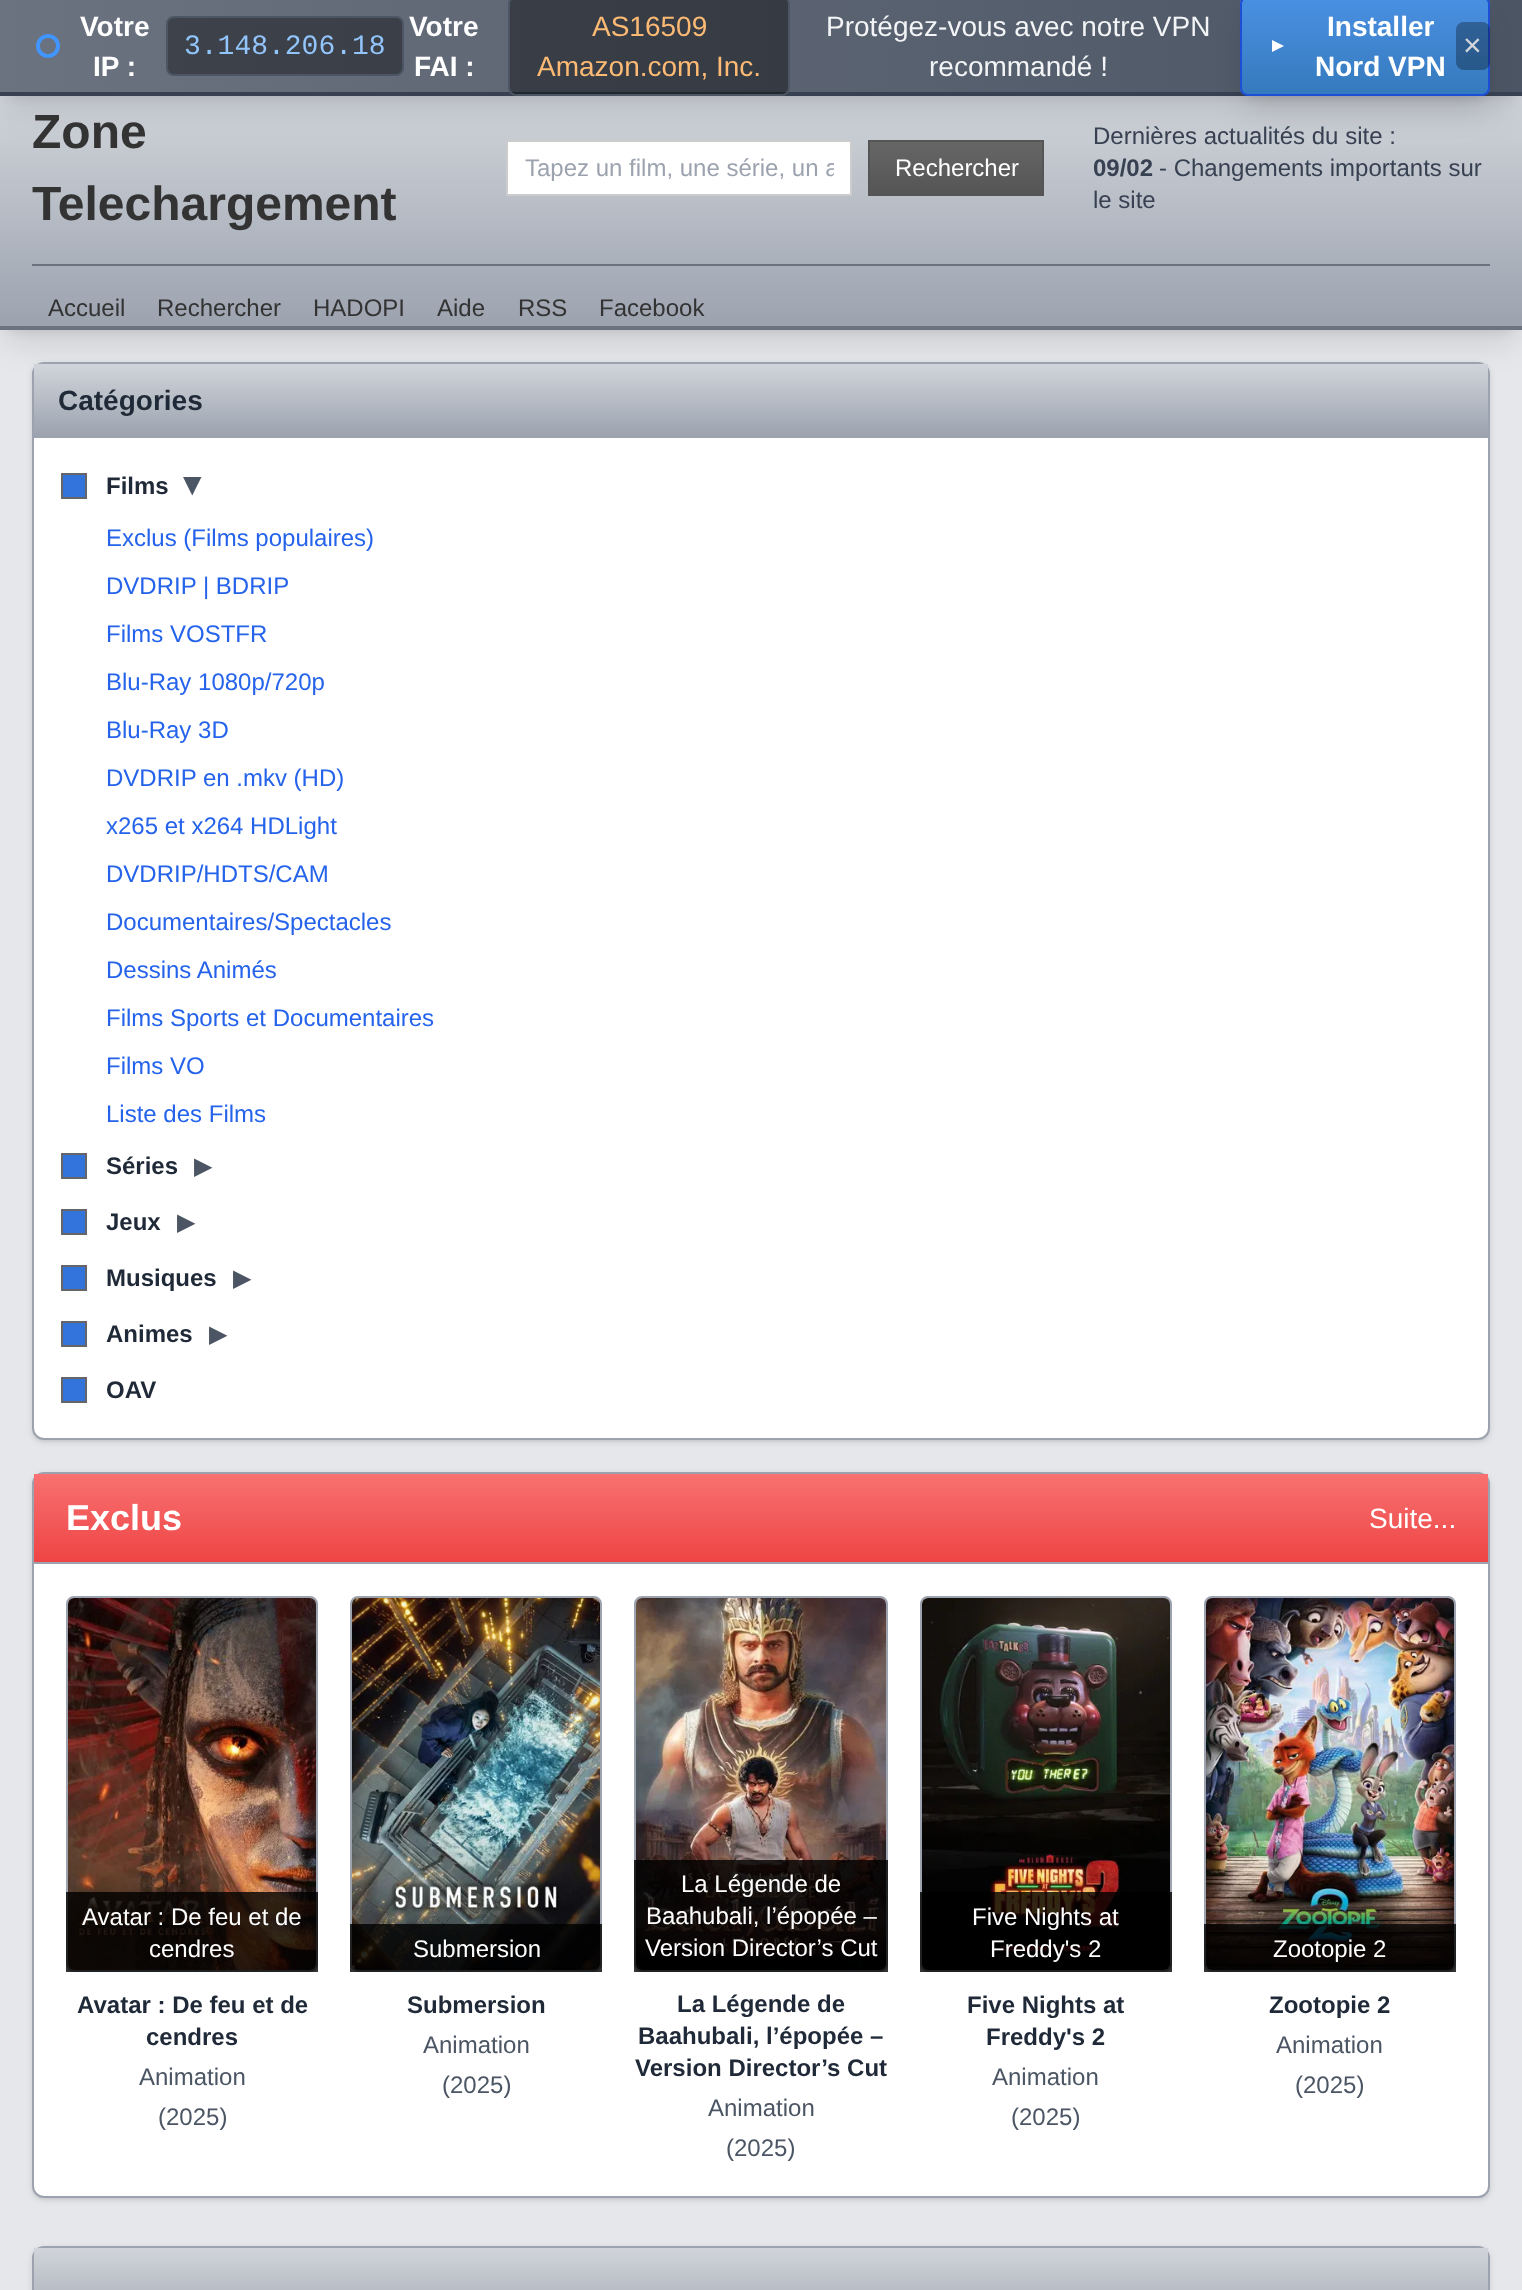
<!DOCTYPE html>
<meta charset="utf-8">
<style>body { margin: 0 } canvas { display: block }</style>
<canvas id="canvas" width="1522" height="2290"></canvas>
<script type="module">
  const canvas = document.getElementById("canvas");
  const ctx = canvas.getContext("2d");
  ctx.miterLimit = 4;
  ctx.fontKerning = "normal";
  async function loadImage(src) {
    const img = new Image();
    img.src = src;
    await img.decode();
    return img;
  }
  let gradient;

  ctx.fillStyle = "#e5e7eb";
  ctx.fillRect(0, 0, 1522, 2290);
  ctx.fillStyle = "rgba(0, 0, 0, 0.1)";
  ctx.filter = "blur(6px)";
  ctx.beginPath();
  ctx.rect(8, 112, 1506, 218);
  ctx.fill();
  ctx.filter = "none";
  ctx.filter = "blur(15px)";
  ctx.beginPath();
  ctx.rect(6, 122, 1510, 222);
  ctx.fill();
  ctx.filter = "none";
  gradient = ctx.createLinearGradient(761, 96, 761, 326);
  gradient.addColorStop(0, "#d1d5db");
  gradient.addColorStop(1, "#9ca3af");
  ctx.fillStyle = gradient;
  ctx.fillRect(0, 96, 1522, 230);
  ctx.fillStyle = "rgba(0, 0, 0, 0.1)";
  ctx.filter = "blur(6px)";
  ctx.beginPath();
  ctx.rect(8, 16, 1506, 80);
  ctx.fill();
  ctx.filter = "none";
  ctx.fillStyle = "#ffffff";
  ctx.beginPath();
  ctx.rect(507, 141, 344, 54);
  ctx.fill();
  ctx.strokeStyle = "#cccccc";
  ctx.lineWidth = 2;
  ctx.stroke();
  gradient = ctx.createLinearGradient(956, 142, 956, 194);
  gradient.addColorStop(0, "#666666");
  gradient.addColorStop(1, "#555555");
  ctx.fillStyle = gradient;
  ctx.fillRect(870, 142, 172, 52);
  ctx.strokeStyle = "#555555";
  ctx.strokeRect(869, 141, 174, 54);
  ctx.fillStyle = "rgba(0, 0, 0, 0.1)";
  ctx.filter = "blur(15px)";
  ctx.beginPath();
  ctx.rect(6, 26, 1510, 84);
  ctx.fill();
  ctx.filter = "none";
  gradient = ctx.createLinearGradient(0, 46, 1522, 46);
  gradient.addColorStop(0, "#6b7280");
  gradient.addColorStop(1, "#4b5563");
  ctx.fillStyle = gradient;
  ctx.fillRect(0, 0, 1522, 92);
  ctx.fillStyle = "#374151";
  ctx.fillRect(0, 92, 1522, 4);
  ctx.drawImage(await loadImage("img1.png"), 36, 34, 24, 24);
  ctx.font = "bold 28px Liberation Sans";
  ctx.fillStyle = "#ffffff";
  ctx.fillText("Votre", 80, 36);
  ctx.fillText("IP :", 93, 76);
  ctx.fillStyle = "rgba(0, 0, 0, 0.4)";
  ctx.beginPath();
  ctx.roundRect(167, 17, 236, 58, 7);
  ctx.fill();
  ctx.strokeStyle = "#4b5563";
  ctx.stroke();
  ctx.font = "28px Liberation Mono";
  ctx.fillStyle = "#93c5fd";
  ctx.fillText("3.148.206.18", 184, 54);
  ctx.font = "bold 28px Liberation Sans";
  ctx.fillStyle = "#ffffff";
  ctx.fillText("Votre", 409, 36);
  ctx.fillText("FAI :", 414, 76);
  ctx.fillStyle = "rgba(0, 0, 0, 0.4)";
  ctx.beginPath();
  ctx.roundRect(509, -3, 280, 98, 7);
  ctx.fill();
  ctx.stroke();
  ctx.font = "28px Liberation Sans";
  ctx.fillStyle = "#fdba74";
  ctx.fillText("AS16509", 592, 36);
  ctx.fillText("Amazon.com, Inc.", 537, 76);
  ctx.fillStyle = "#f3f4f6";
  ctx.fillText("Protégez-vous avec notre VPN", 826, 36);
  ctx.fillText("recommandé !", 929, 76);
  ctx.fillStyle = "rgba(0, 0, 0, 0.1)";
  ctx.filter = "blur(6px)";
  ctx.beginPath();
  ctx.rect(1248, 12, 234, 84);
  ctx.fill();
  ctx.filter = "none";
  ctx.filter = "blur(15px)";
  ctx.beginPath();
  ctx.roundRect(1246, 22, 238, 88, 2);
  ctx.fill();
  ctx.filter = "none";
  ctx.save();
  ctx.beginPath();
  ctx.roundRect(1240, -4, 250, 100, 8);
  ctx.clip();
  gradient = ctx.createLinearGradient(1365, -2, 1365, 94);
  gradient.addColorStop(0, "#4a90e2");
  gradient.addColorStop(1, "#357abd");
  ctx.fillStyle = gradient;
  ctx.fillRect(1240, 0, 250, 94);
  ctx.restore();
  ctx.beginPath();
  ctx.roundRect(1241, -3, 248, 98, 7);
  ctx.strokeStyle = "#1d4ed8";
  ctx.stroke();
  ctx.fillStyle = "#ffffff";
  ctx.beginPath();
  ctx.moveTo(1272, 40);
  ctx.lineTo(1284, 46);
  ctx.lineTo(1272, 52);
  ctx.closePath();
  ctx.fill();
  ctx.font = "bold 28px Liberation Sans";
  ctx.fillText("Installer", 1327, 36);
  ctx.fillText("Nord VPN", 1315, 76);
  ctx.fillStyle = "rgba(0, 0, 0, 0.3)";
  ctx.beginPath();
  ctx.roundRect(1456, 22, 34, 48, 8);
  ctx.fill();
  ctx.font = "32px Liberation Sans";
  ctx.fillStyle = "#d1d5db";
  ctx.fillText("×", 1463, 56);
  ctx.fillStyle = "#6b7280";
  ctx.fillRect(0, 326, 1522, 4);
  ctx.font = "bold 48px Liberation Sans";
  ctx.fillStyle = "#333333";
  ctx.fillText("Zone", 32, 148);
  ctx.fillText("Telechargement", 32, 220);
  ctx.save();
  ctx.beginPath();
  ctx.rect(524, 154, 310, 28);
  ctx.clip();
  ctx.font = "24px Liberation Sans";
  ctx.fillStyle = "#9ca3af";
  ctx.fillText("Tapez un film, une série, un a", 525, 176);
  ctx.restore();
  ctx.font = "24px Liberation Sans";
  ctx.fillStyle = "#ffffff";
  ctx.fillText("Rechercher", 895, 176);
  ctx.fillStyle = "#374151";
  ctx.fillText("Dernières actualités du site :", 1093, 144);
  ctx.font = "bold 24px Liberation Sans";
  ctx.fillText("09/02", 1093, 176);
  ctx.font = "24px Liberation Sans";
  ctx.fillText("- Changements importants sur", 1159, 176);
  ctx.fillText("le site", 1093, 208);
  ctx.fillStyle = "#6b7280";
  ctx.fillRect(32, 264, 1458, 2);
  ctx.fillStyle = "#333333";
  ctx.fillText("Accueil", 48, 316);
  ctx.fillText("Rechercher", 157, 316);
  ctx.fillText("HADOPI", 313, 316);
  ctx.fillText("Aide", 437, 316);
  ctx.fillText("RSS", 518, 316);
  ctx.fillText("Facebook", 599, 316);
  ctx.fillStyle = "rgba(0, 0, 0, 0.1)";
  ctx.filter = "blur(2px)";
  ctx.beginPath();
  ctx.roundRect(34, 366, 1454, 1074, 10);
  ctx.fill();
  ctx.filter = "none";
  ctx.filter = "blur(3px)";
  ctx.beginPath();
  ctx.roundRect(32, 364, 1458, 1078, 12);
  ctx.fill();
  ctx.filter = "none";
  ctx.fillStyle = "#ffffff";
  ctx.beginPath();
  ctx.roundRect(33, 363, 1456, 1076, 11);
  ctx.fill();
  ctx.strokeStyle = "#9ca3af";
  ctx.stroke();
  gradient = ctx.createLinearGradient(761, 364, 761, 436);
  gradient.addColorStop(0, "#d1d5db");
  gradient.addColorStop(1, "#9ca3af");
  ctx.fillStyle = gradient;
  ctx.fillRect(34, 364, 1454, 72);
  ctx.fillStyle = "#9ca3af";
  ctx.fillRect(34, 436, 1454, 2);
  ctx.font = "bold 28px Liberation Sans";
  ctx.fillStyle = "#1f2937";
  ctx.fillText("Catégories", 58, 410);
  ctx.fillStyle = "#3373dc";
  ctx.fillRect(63, 475, 22, 22);
  ctx.beginPath();
  ctx.moveTo(62, 474);
  ctx.lineTo(86, 474);
  ctx.lineTo(86, 498);
  ctx.lineTo(62, 498);
  ctx.closePath();
  ctx.strokeStyle = "#666666";
  ctx.stroke();
  ctx.font = "bold 24px Liberation Sans";
  ctx.fillStyle = "#1f2937";
  ctx.fillText("Films", 106, 494);
  ctx.font = "24px DejaVu Sans";
  ctx.fillStyle = "#4b5563";
  ctx.save();
  ctx.translate(186, 477);
  ctx.rotate(90 * Math.PI / 180);
  ctx.fillText("▶", 0, 0);
  ctx.restore();
  ctx.font = "24px Liberation Sans";
  ctx.fillStyle = "#2563eb";
  ctx.fillText("Exclus (Films populaires)", 106, 546);
  ctx.fillText("DVDRIP | BDRIP", 106, 594);
  ctx.fillText("Films VOSTFR", 106, 642);
  ctx.fillText("Blu-Ray 1080p/720p", 106, 690);
  ctx.fillText("Blu-Ray 3D", 106, 738);
  ctx.fillText("DVDRIP en .mkv (HD)", 106, 786);
  ctx.fillText("x265 et x264 HDLight", 106, 834);
  ctx.fillText("DVDRIP/HDTS/CAM", 106, 882);
  ctx.fillText("Documentaires/Spectacles", 106, 930);
  ctx.fillText("Dessins Animés", 106, 978);
  ctx.fillText("Films Sports et Documentaires", 106, 1026);
  ctx.fillText("Films VO", 106, 1074);
  ctx.fillText("Liste des Films", 106, 1122);
  ctx.fillStyle = "#3373dc";
  ctx.fillRect(63, 1155, 22, 22);
  ctx.beginPath();
  ctx.moveTo(62, 1154);
  ctx.lineTo(86, 1154);
  ctx.lineTo(86, 1178);
  ctx.lineTo(62, 1178);
  ctx.closePath();
  ctx.stroke();
  ctx.font = "bold 24px Liberation Sans";
  ctx.fillStyle = "#1f2937";
  ctx.fillText("Séries", 106, 1174);
  ctx.font = "24px DejaVu Sans";
  ctx.fillStyle = "#4b5563";
  ctx.fillText("▶", 194, 1174);
  ctx.fillStyle = "#3373dc";
  ctx.fillRect(63, 1211, 22, 22);
  ctx.beginPath();
  ctx.moveTo(62, 1210);
  ctx.lineTo(86, 1210);
  ctx.lineTo(86, 1234);
  ctx.lineTo(62, 1234);
  ctx.closePath();
  ctx.stroke();
  ctx.font = "bold 24px Liberation Sans";
  ctx.fillStyle = "#1f2937";
  ctx.fillText("Jeux", 106, 1230);
  ctx.font = "24px DejaVu Sans";
  ctx.fillStyle = "#4b5563";
  ctx.fillText("▶", 177, 1230);
  ctx.fillStyle = "#3373dc";
  ctx.fillRect(63, 1267, 22, 22);
  ctx.beginPath();
  ctx.moveTo(62, 1266);
  ctx.lineTo(86, 1266);
  ctx.lineTo(86, 1290);
  ctx.lineTo(62, 1290);
  ctx.closePath();
  ctx.stroke();
  ctx.font = "bold 24px Liberation Sans";
  ctx.fillStyle = "#1f2937";
  ctx.fillText("Musiques", 106, 1286);
  ctx.font = "24px DejaVu Sans";
  ctx.fillStyle = "#4b5563";
  ctx.fillText("▶", 233, 1286);
  ctx.fillStyle = "#3373dc";
  ctx.fillRect(63, 1323, 22, 22);
  ctx.beginPath();
  ctx.moveTo(62, 1322);
  ctx.lineTo(86, 1322);
  ctx.lineTo(86, 1346);
  ctx.lineTo(62, 1346);
  ctx.closePath();
  ctx.stroke();
  ctx.font = "bold 24px Liberation Sans";
  ctx.fillStyle = "#1f2937";
  ctx.fillText("Animes", 106, 1342);
  ctx.font = "24px DejaVu Sans";
  ctx.fillStyle = "#4b5563";
  ctx.fillText("▶", 209, 1342);
  ctx.fillStyle = "#3373dc";
  ctx.fillRect(63, 1379, 22, 22);
  ctx.beginPath();
  ctx.moveTo(62, 1378);
  ctx.lineTo(86, 1378);
  ctx.lineTo(86, 1402);
  ctx.lineTo(62, 1402);
  ctx.closePath();
  ctx.stroke();
  ctx.font = "bold 24px Liberation Sans";
  ctx.fillStyle = "#1f2937";
  ctx.fillText("OAV", 106, 1398);
  ctx.fillStyle = "rgba(0, 0, 0, 0.1)";
  ctx.filter = "blur(2px)";
  ctx.beginPath();
  ctx.roundRect(34, 1476, 1454, 722, 10);
  ctx.fill();
  ctx.filter = "none";
  ctx.filter = "blur(3px)";
  ctx.beginPath();
  ctx.roundRect(32, 1474, 1458, 726, 12);
  ctx.fill();
  ctx.filter = "none";
  ctx.fillStyle = "#ffffff";
  ctx.beginPath();
  ctx.roundRect(33, 1473, 1456, 724, 11);
  ctx.fill();
  ctx.strokeStyle = "#9ca3af";
  ctx.stroke();
  gradient = ctx.createLinearGradient(761, 1474, 761, 1562);
  gradient.addColorStop(0, "#f87171");
  gradient.addColorStop(1, "#ef4444");
  ctx.fillStyle = gradient;
  ctx.fillRect(34, 1474, 1454, 88);
  ctx.fillStyle = "#9ca3af";
  ctx.fillRect(34, 1562, 1454, 2);
  ctx.font = "bold 36px Liberation Sans";
  ctx.fillStyle = "#ffffff";
  ctx.fillText("Exclus", 66, 1530);
  ctx.font = "28px Liberation Sans";
  ctx.fillText("Suite...", 1369, 1528);
  ctx.beginPath();
  ctx.roundRect(67, 1597, 250, 374, 7);
  ctx.stroke();
  ctx.drawImage(await loadImage("img2.png"), 68, 1598, 248, 372);
  ctx.fillStyle = "rgba(0, 0, 0, 0.8)";
  ctx.fillRect(66, 1892, 252, 80);
  ctx.font = "24px Liberation Sans";
  ctx.fillStyle = "#ffffff";
  ctx.fillText("Avatar : De feu et de", 82, 1925);
  ctx.fillText("cendres", 149, 1957);
  ctx.font = "bold 24px Liberation Sans";
  ctx.fillStyle = "#1f2937";
  ctx.fillText("Avatar : De feu et de", 77, 2013);
  ctx.fillText("cendres", 146, 2045);
  ctx.font = "24px Liberation Sans";
  ctx.fillStyle = "#4b5563";
  ctx.fillText("Animation", 139, 2085);
  ctx.fillText("(2025)", 158, 2125);
  ctx.beginPath();
  ctx.roundRect(351, 1597, 250, 374, 7);
  ctx.stroke();
  ctx.drawImage(await loadImage("img3.png"), 352, 1598, 248, 372);
  ctx.fillStyle = "rgba(0, 0, 0, 0.8)";
  ctx.fillRect(350, 1924, 252, 48);
  ctx.fillStyle = "#ffffff";
  ctx.fillText("Submersion", 413, 1957);
  ctx.font = "bold 24px Liberation Sans";
  ctx.fillStyle = "#1f2937";
  ctx.fillText("Submersion", 407, 2013);
  ctx.font = "24px Liberation Sans";
  ctx.fillStyle = "#4b5563";
  ctx.fillText("Animation", 423, 2053);
  ctx.fillText("(2025)", 442, 2093);
  ctx.beginPath();
  ctx.roundRect(635, 1597, 252, 374, 7);
  ctx.stroke();
  ctx.drawImage(await loadImage("img4.png"), 636, 1598, 250, 372);
  ctx.fillStyle = "rgba(0, 0, 0, 0.8)";
  ctx.fillRect(634, 1860, 254, 112);
  ctx.fillStyle = "#ffffff";
  ctx.fillText("La Légende de", 681, 1892);
  ctx.fillText("Baahubali, l’épopée –", 646, 1924);
  ctx.fillText("Version Director’s Cut", 645, 1956);
  ctx.font = "bold 24px Liberation Sans";
  ctx.fillStyle = "#1f2937";
  ctx.fillText("La Légende de", 677, 2012);
  ctx.fillText("Baahubali, l’épopée –", 638, 2044);
  ctx.fillText("Version Director’s Cut", 635, 2076);
  ctx.font = "24px Liberation Sans";
  ctx.fillStyle = "#4b5563";
  ctx.fillText("Animation", 708, 2116);
  ctx.fillText("(2025)", 726, 2156);
  ctx.beginPath();
  ctx.roundRect(921, 1597, 250, 374, 7);
  ctx.stroke();
  ctx.drawImage(await loadImage("img5.png"), 922, 1598, 248, 372);
  ctx.fillStyle = "rgba(0, 0, 0, 0.8)";
  ctx.fillRect(920, 1892, 252, 80);
  ctx.fillStyle = "#ffffff";
  ctx.fillText("Five Nights at", 972, 1925);
  ctx.fillText("Freddy's 2", 990, 1957);
  ctx.font = "bold 24px Liberation Sans";
  ctx.fillStyle = "#1f2937";
  ctx.fillText("Five Nights at", 967, 2013);
  ctx.fillText("Freddy's 2", 986, 2045);
  ctx.font = "24px Liberation Sans";
  ctx.fillStyle = "#4b5563";
  ctx.fillText("Animation", 992, 2085);
  ctx.fillText("(2025)", 1011, 2125);
  ctx.beginPath();
  ctx.roundRect(1205, 1597, 250, 374, 7);
  ctx.stroke();
  ctx.drawImage(await loadImage("img6.png"), 1206, 1598, 248, 372);
  ctx.fillStyle = "rgba(0, 0, 0, 0.8)";
  ctx.fillRect(1204, 1924, 252, 48);
  ctx.fillStyle = "#ffffff";
  ctx.fillText("Zootopie 2", 1273, 1957);
  ctx.font = "bold 24px Liberation Sans";
  ctx.fillStyle = "#1f2937";
  ctx.fillText("Zootopie 2", 1269, 2013);
  ctx.font = "24px Liberation Sans";
  ctx.fillStyle = "#4b5563";
  ctx.fillText("Animation", 1276, 2053);
  ctx.fillText("(2025)", 1295, 2093);
  ctx.fillStyle = "rgba(0, 0, 0, 0.1)";
  ctx.filter = "blur(3px)";
  ctx.beginPath();
  ctx.roundRect(32, 2248, 1458, 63, 12);
  ctx.fill();
  ctx.filter = "none";
  ctx.beginPath();
  ctx.roundRect(33, 2247, 1456, 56, 11);
  ctx.stroke();
  gradient = ctx.createLinearGradient(761, 2248, 761, 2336);
  gradient.addColorStop(0, "#d1d5db");
  gradient.addColorStop(1, "#9ca3af");
  ctx.fillStyle = gradient;
  ctx.fillRect(34, 2248, 1454, 42);
</script>
